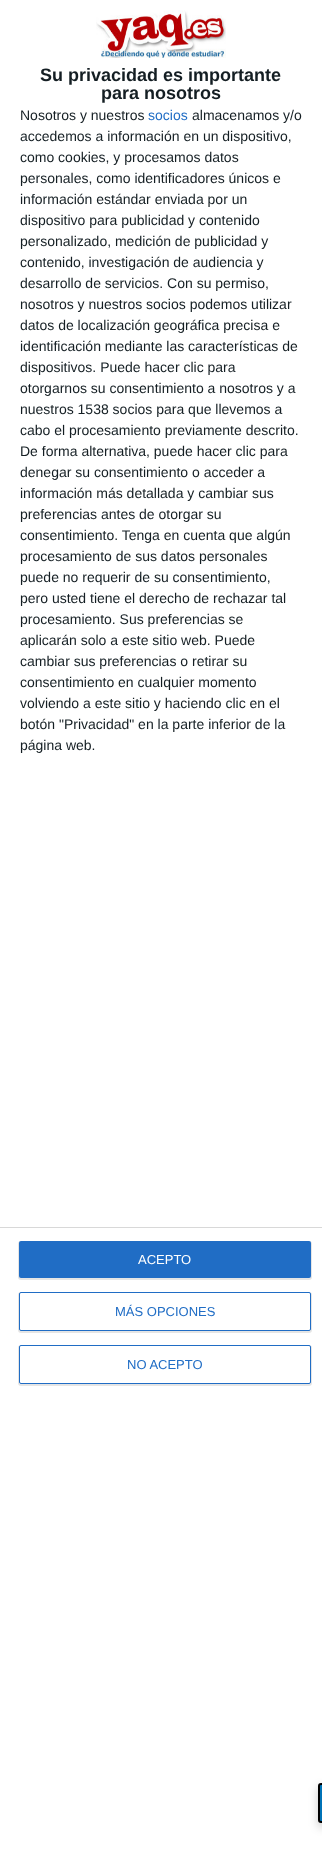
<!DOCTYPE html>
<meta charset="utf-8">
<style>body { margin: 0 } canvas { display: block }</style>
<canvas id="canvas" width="322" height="1863"></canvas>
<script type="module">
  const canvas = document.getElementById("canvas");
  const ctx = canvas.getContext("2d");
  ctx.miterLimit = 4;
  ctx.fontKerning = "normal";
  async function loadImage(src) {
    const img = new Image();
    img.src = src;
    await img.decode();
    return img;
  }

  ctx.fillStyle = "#ffffff";
  ctx.fillRect(0, 0, 322, 1863);
  ctx.drawImage(await loadImage("img1.png"), 96, 10, 130, 48);
  ctx.font = "bold 18px Liberation Sans";
  ctx.fillStyle = "#141e23";
  ctx.fillText("Su privacidad es importante", 40, 81);
  ctx.fillText("para nosotros", 101, 99);
  ctx.font = "14px Liberation Sans";
  ctx.fillText("Nosotros y nuestros", 20, 120);
  ctx.fillStyle = "#206dc5";
  ctx.fillText("socios", 148, 120);
  ctx.fillStyle = "#141e23";
  ctx.fillText("almacenamos y/o", 192, 120);
  ctx.fillText("accedemos a información en un dispositivo,", 20, 141);
  ctx.fillText("como cookies, y procesamos datos", 20, 162);
  ctx.fillText("personales, como identificadores únicos e", 20, 183);
  ctx.fillText("información estándar enviada por un", 20, 204);
  ctx.fillText("dispositivo para publicidad y contenido", 20, 225);
  ctx.fillText("personalizado, medición de publicidad y", 20, 246);
  ctx.fillText("contenido, investigación de audiencia y", 20, 267);
  ctx.fillText("desarrollo de servicios. Con su permiso,", 20, 288);
  ctx.fillText("nosotros y nuestros socios podemos utilizar", 20, 309);
  ctx.fillText("datos de localización geográfica precisa e", 20, 330);
  ctx.fillText("identificación mediante las características de", 20, 351);
  ctx.fillText("dispositivos. Puede hacer clic para", 20, 372);
  ctx.fillText("otorgarnos su consentimiento a nosotros y a", 20, 393);
  ctx.fillText("nuestros 1538 socios para que llevemos a", 20, 414);
  ctx.fillText("cabo el procesamiento previamente descrito.", 20, 435);
  ctx.fillText("De forma alternativa, puede hacer clic para", 20, 456);
  ctx.fillText("denegar su consentimiento o acceder a", 20, 477);
  ctx.fillText("información más detallada y cambiar sus", 20, 498);
  ctx.fillText("preferencias antes de otorgar su", 20, 519);
  ctx.fillText("consentimiento. Tenga en cuenta que algún", 20, 540);
  ctx.fillText("procesamiento de sus datos personales", 20, 561);
  ctx.fillText("puede no requerir de su consentimiento,", 20, 582);
  ctx.fillText("pero usted tiene el derecho de rechazar tal", 20, 603);
  ctx.fillText("procesamiento. Sus preferencias se", 20, 624);
  ctx.fillText("aplicarán solo a este sitio web. Puede", 20, 645);
  ctx.fillText("cambiar sus preferencias o retirar su", 20, 666);
  ctx.fillText("consentimiento en cualquier momento", 20, 687);
  ctx.fillText("volviendo a este sitio y haciendo clic en el", 20, 708);
  ctx.fillText("botón \"Privacidad\" en la parte inferior de la", 20, 729);
  ctx.fillText("página web.", 20, 750);
  ctx.fillStyle = "#d8d8d8";
  ctx.fillRect(0, 1227, 322, 1);
  ctx.fillStyle = "rgba(0, 0, 0, 0.1)";
  ctx.filter = "blur(0.5px)";
  ctx.beginPath();
  ctx.roundRect(18, 1241, 294, 39, 3);
  ctx.fill();
  ctx.filter = "none";
  ctx.fillStyle = "#206dc5";
  ctx.beginPath();
  ctx.roundRect(19, 1241, 292, 37, 2);
  ctx.fill();
  ctx.font = "13px Liberation Sans";
  ctx.fillStyle = "#ffffff";
  ctx.fillText("ACEPTO", 138, 1264);
  ctx.fillStyle = "rgba(0, 0, 0, 0.1)";
  ctx.filter = "blur(0.5px)";
  ctx.beginPath();
  ctx.roundRect(18, 1292, 294, 41, 3);
  ctx.fill();
  ctx.filter = "none";
  ctx.fillStyle = "#ffffff";
  ctx.beginPath();
  ctx.roundRect(19.5, 1292.5, 291, 38, 1.5);
  ctx.fill();
  ctx.strokeStyle = "#206dc5";
  ctx.stroke();
  ctx.fillStyle = "#206dc5";
  ctx.fillText("MÁS OPCIONES", 115, 1316);
  ctx.fillStyle = "rgba(0, 0, 0, 0.1)";
  ctx.filter = "blur(0.5px)";
  ctx.beginPath();
  ctx.roundRect(18, 1345, 294, 41, 3);
  ctx.fill();
  ctx.filter = "none";
  ctx.fillStyle = "#ffffff";
  ctx.beginPath();
  ctx.roundRect(19.5, 1345.5, 291, 38, 1.5);
  ctx.fill();
  ctx.stroke();
  ctx.fillStyle = "#206dc5";
  ctx.fillText("NO ACEPTO", 127, 1369);
  ctx.fillStyle = "rgba(0, 0, 0, 0.2)";
  ctx.filter = "blur(5px)";
  ctx.beginPath();
  ctx.roundRect(318, 1787, 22, 40, 3);
  ctx.fill();
  ctx.filter = "none";
  ctx.fillStyle = "#0073b7";
  ctx.beginPath();
  ctx.moveTo(321, 1784);
  ctx.lineTo(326, 1784);
  ctx.lineTo(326, 1822);
  ctx.lineTo(321, 1822);
  ctx.bezierCurveTo(320, 1822, 319, 1821, 319, 1820);
  ctx.lineTo(319, 1786);
  ctx.bezierCurveTo(319, 1785, 320, 1784, 321, 1784);
  ctx.closePath();
  ctx.fill();
  ctx.strokeStyle = "#000000";
  ctx.lineWidth = 2;
  ctx.stroke();
</script>
